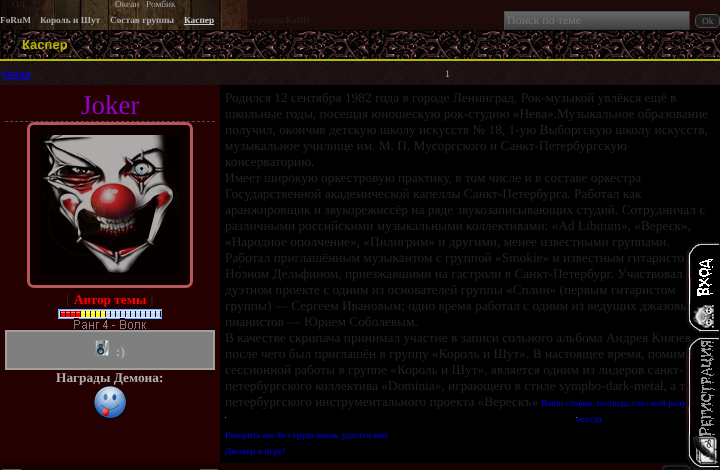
<!DOCTYPE html>
<meta charset="utf-8">
<style>body { margin: 0 } canvas { display: block }</style>
<canvas id="canvas" width="720" height="470"></canvas>
<script type="module">
  const canvas = document.getElementById("canvas");
  const ctx = canvas.getContext("2d");
  ctx.miterLimit = 4;
  ctx.fontKerning = "normal";
  async function loadImage(src) {
    const img = new Image();
    img.src = src;
    await img.decode();
    return img;
  }

  ctx.fillStyle = "#1d0a08";
  ctx.fillRect(0, 0, 720, 470);
  ctx.drawImage(await loadImage("img1.png"), 0, 0, 250, 30);
  ctx.font = "13.35px Liberation Serif";
  ctx.fillStyle = "#232323";
  ctx.fillText("од", 12, 7);
  ctx.font = "9.3px Liberation Serif";
  ctx.fillStyle = "#aaaaaa";
  ctx.fillText("Океан", 115, 7);
  ctx.font = "13.35px Liberation Serif";
  ctx.fillStyle = "#232323";
  ctx.fillText(",", 139, 7);
  ctx.font = "9.3px Liberation Serif";
  ctx.fillStyle = "#aaaaaa";
  ctx.fillText("Ромбик", 146, 7);
  ctx.font = "bold 9.3px Liberation Serif";
  ctx.fillText("FoRuM", 0, 23);
  ctx.fillText("Король и Шут", 40, 23);
  ctx.fillText("Состав группы", 110, 23);
  ctx.fillStyle = "#cccccc";
  ctx.fillRect(184, 24, 30, 1);
  ctx.fillText("Каспер", 184, 23);
  ctx.font = "9.3px Liberation Serif";
  ctx.fillStyle = "#232323";
  ctx.fillText("ч группы КиШ)", 247, 23);
  ctx.drawImage(await loadImage("img2.png"), 505, 12, 184, 17);
  ctx.fillStyle = "#4f4f4f";
  ctx.fillRect(504, 11, 186, 1);
  ctx.fillStyle = "#353535";
  ctx.fillRect(689, 11, 1, 19);
  ctx.fillRect(504, 29, 186, 1);
  ctx.fillStyle = "#4f4f4f";
  ctx.fillRect(504, 11, 1, 19);
  ctx.font = "12px Liberation Serif";
  ctx.fillStyle = "#757575";
  ctx.fillText("Поиск по теме", 507, 24);
  ctx.fillStyle = "#1e1e1e";
  ctx.beginPath();
  ctx.roundRect(695.5, 14.5, 24, 13, 4.5);
  ctx.fill();
  ctx.strokeStyle = "#4f4f4f";
  ctx.stroke();
  ctx.font = "9.3px Liberation Serif";
  ctx.fillStyle = "#6d6d6d";
  ctx.fillText("Ok", 702, 24);
  ctx.drawImage(await loadImage("img3.png"), 0, 30, 720, 29);
  ctx.font = "bold 13px Liberation Sans";
  ctx.fillStyle = "#b4b705";
  ctx.fillText("Каспер", 22, 49);
  ctx.fillRect(0, 59, 720, 2);
  ctx.drawImage(await loadImage("img4.png"), 0, 61, 220, 24);
  ctx.font = "bold 10px Liberation Serif";
  ctx.fillStyle = "#0000ff";
  ctx.fillText("Океан", 2, 77);
  ctx.fillRect(2, 78, 29, 1);
  ctx.drawImage(await loadImage("img5.png"), 220, 61, 500, 24);
  ctx.font = "10px Liberation Serif";
  ctx.fillStyle = "#aaaaaa";
  ctx.fillText("1", 445, 77);
  ctx.fillStyle = "#240000";
  ctx.fillRect(0, 85, 220, 378);
  ctx.beginPath();
  ctx.moveTo(5, 121.5);
  ctx.lineTo(215, 121.5);
  ctx.setLineDash([3, 2.05]);
  ctx.stroke();
  ctx.font = "27px Liberation Serif";
  ctx.fillStyle = "#9400d3";
  ctx.fillText("Joker", 81, 114);
  ctx.fillStyle = "#0c0000";
  ctx.beginPath();
  ctx.roundRect(28.5, 123.5, 163, 163, 5.5);
  ctx.fill();
  ctx.strokeStyle = "#b75658";
  ctx.lineWidth = 3;
  ctx.setLineDash([]);
  ctx.stroke();
  ctx.drawImage(await loadImage("img6.png"), 40, 135, 140, 140);
  ctx.font = "13.35px Liberation Serif";
  ctx.fillStyle = "#232323";
  ctx.fillText("[", 66, 304);
  ctx.font = "bold 13.35px Liberation Serif";
  ctx.fillStyle = "#ff0000";
  ctx.fillText("Автор темы", 74, 304);
  ctx.font = "13.35px Liberation Serif";
  ctx.fillStyle = "#232323";
  ctx.fillText("]", 149, 304);
  ctx.drawImage(await loadImage("img7.png"), 58, 309, 104, 20);
  ctx.fillStyle = "#7f7f7f";
  ctx.beginPath();
  ctx.rect(6, 331, 208, 38);
  ctx.fill();
  ctx.strokeStyle = "#a0a0a0";
  ctx.lineWidth = 2;
  ctx.stroke();
  ctx.drawImage(await loadImage("img8.png"), 95, 340, 14, 16);
  ctx.font = "bold 13.35px Liberation Serif";
  ctx.fillStyle = "#b1b1b1";
  ctx.fillText(":)", 116, 356);
  ctx.fillText("Награды Демона:", 56, 382);
  ctx.drawImage(await loadImage("img9.png"), 94, 386, 32, 32);
  ctx.fillStyle = "#000000";
  ctx.fillRect(220, 85, 500, 378);
  ctx.font = "13.35px Liberation Serif";
  ctx.fillStyle = "#232323";
  ctx.fillText("Родился 12 сентября 1982 года в городе Ленинград. Рок-музыкой увлёкся ещё в", 225, 102);
  ctx.fillText("школьные годы, посещая юношескую рок-студию «Нева».Музыкальное образование", 225, 118);
  ctx.fillText("получил, окончив детскую школу искусств № 18, 1-ую Выборгскую школу искусств,", 225, 134);
  ctx.fillText("музыкальное училище им. М. П. Мусоргского и Санкт-Петербургскую", 225, 150);
  ctx.fillText("консерваторию.", 225, 166);
  ctx.fillText("Имеет широкую оркестровую практику, в том числе и в составе оркестра", 225, 182);
  ctx.fillText("Государственной академической капеллы Санкт-Петербурга. Работал как", 225, 198);
  ctx.fillText("аранжировщик и звукорежиссёр на ряде звукозаписывающих студий. Сотрудничал с", 225, 214);
  ctx.fillText("различными российскими музыкальными коллективами: «Ad Libitum», «Вереск»,", 225, 230);
  ctx.fillText("«Народное ополчение», «Пилигрим» и другими, менее известными группами.", 225, 246);
  ctx.fillText("Работал приглашённым музыкантом с группой «Smokie» и известным гитаристо", 225, 262);
  ctx.fillText("Но́эном Де́льфином, приезжавшими на гастроли в Санкт-Петербург. Участвовал", 225, 278);
  ctx.fillText("дуэтном проекте с одним из основателей группы «Сплин» (первым гитаристом", 225, 294);
  ctx.fillText("группы) — Сергеем Ивановым; одно время работал с одним из ведущих джазовы", 225, 310);
  ctx.fillText("пианистов — Юрием Соболевым.", 225, 326);
  ctx.fillText("В качестве скрипача принимал участие в записи сольного альбома Андрея Князев", 225, 342);
  ctx.fillText("после чего был приглашён в группу «Король и Шут». В настоящее время, помим", 225, 358);
  ctx.fillText("сессионной работы в группе «Король и Шут», является одним из лидеров санкт-", 225, 374);
  ctx.fillText("петербургского коллектива «Dominia», играющего в стиле sympho-dark-metal, а т", 225, 390);
  ctx.fillText("петербургского инструментального проекта «Верескъ»", 225, 406);
  ctx.font = "9.3px Liberation Serif";
  ctx.fillStyle = "#0000ff";
  ctx.fillText("Ваши ставки, господа, глаз мой раду", 541, 406);
  ctx.fillStyle = "#777777";
  ctx.fillRect(576, 417, 1, 1);
  ctx.fillRect(225, 417, 1, 1);
  ctx.fillStyle = "#0000ff";
  ctx.fillText("всегда", 577, 422);
  ctx.fillText("Разорить вас без труда вновь удастся мне", 225, 438);
  ctx.fillText("Джокер в игре!", 225, 454);
  ctx.fillStyle = "#180000";
  ctx.fillRect(0, 463, 720, 7);
  ctx.fillStyle = "#4f4f4f";
  ctx.fillRect(2, 469, 19, 1);
  ctx.fillRect(200, 469, 18, 1);
  ctx.drawImage(await loadImage("img10.png"), 662, 465, 28, 5);
  ctx.drawImage(await loadImage("img11.png"), 690, 466, 28, 4);
  ctx.drawImage(await loadImage("img12.png"), 686, 242, 33, 91);
  ctx.drawImage(await loadImage("img13.png"), 686, 336, 33, 133);
</script>
